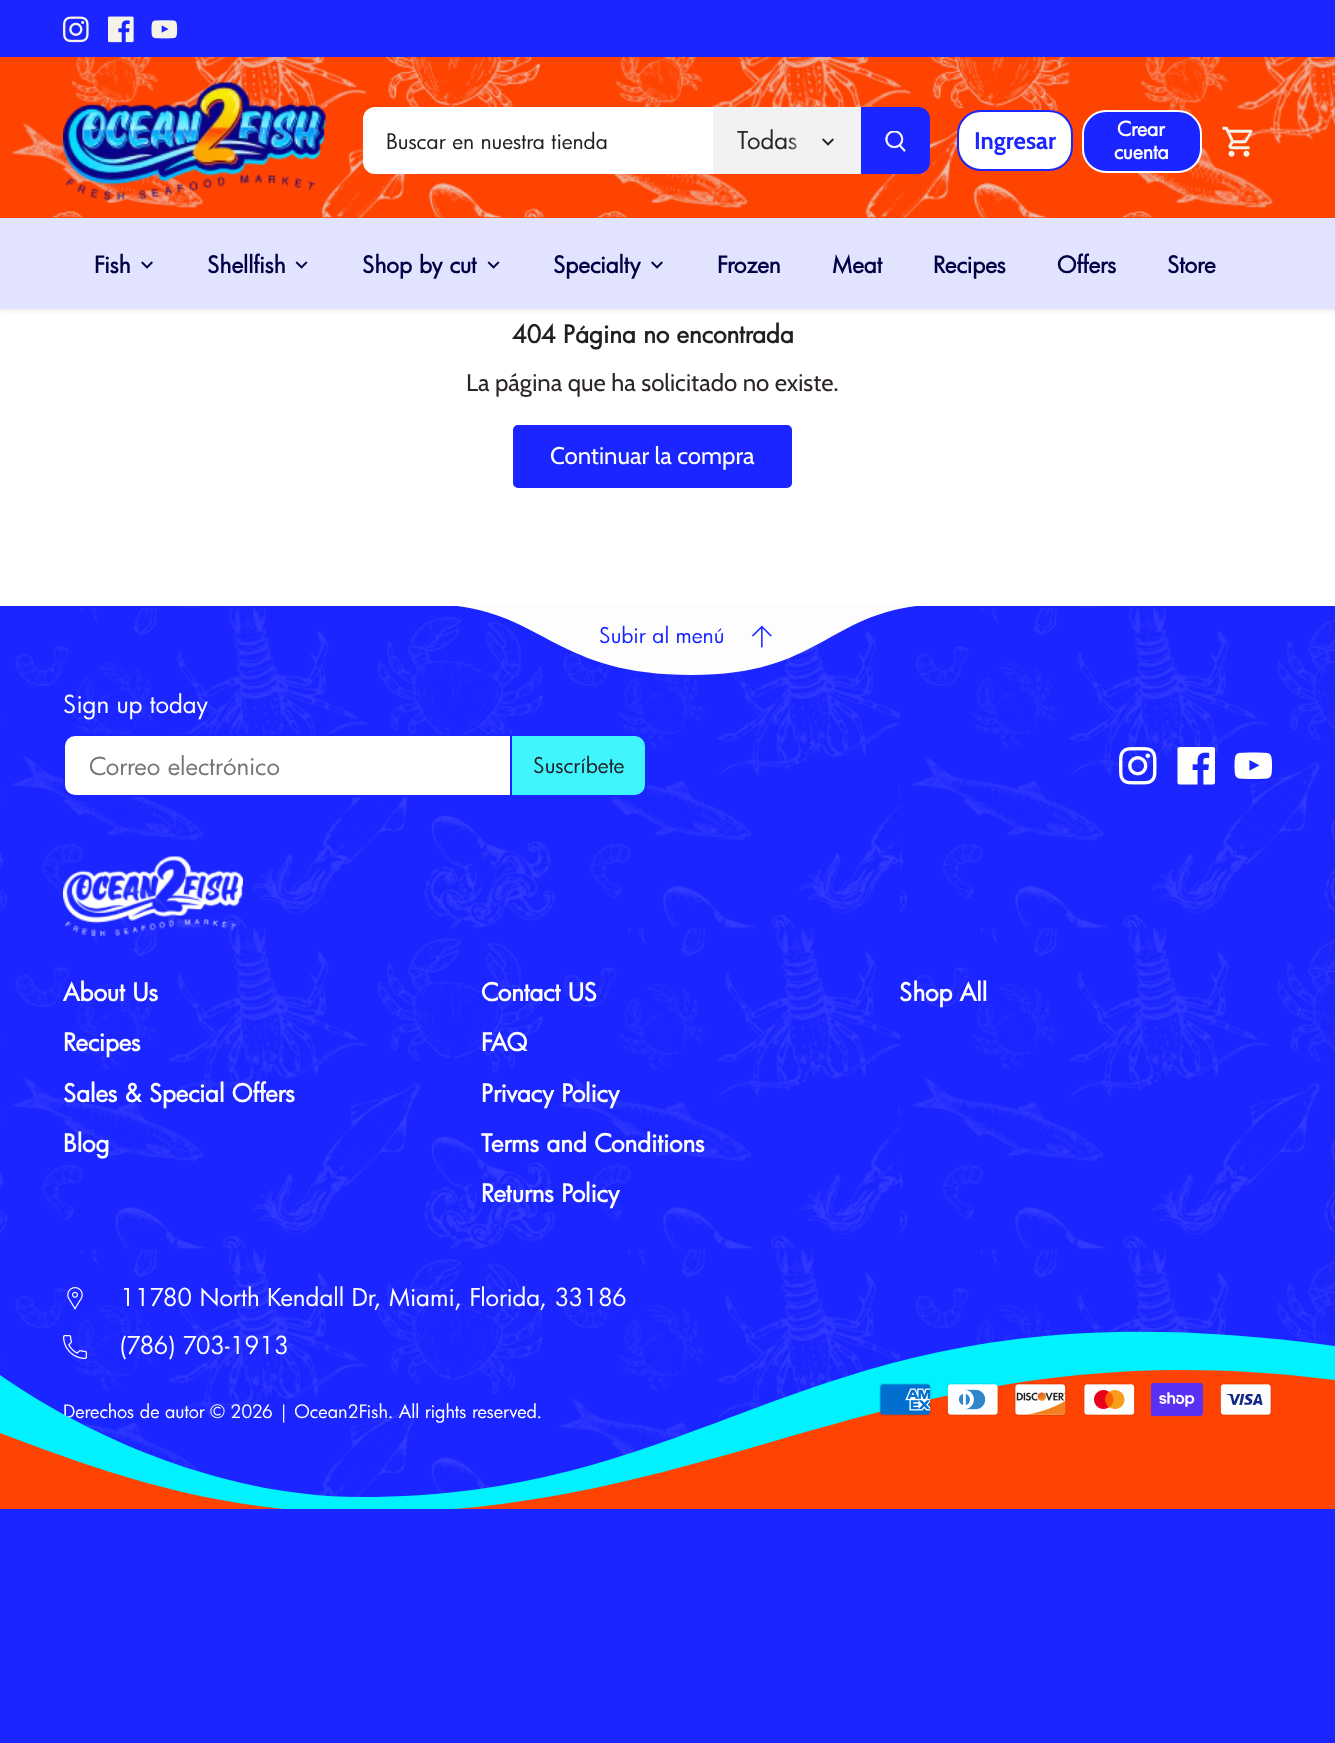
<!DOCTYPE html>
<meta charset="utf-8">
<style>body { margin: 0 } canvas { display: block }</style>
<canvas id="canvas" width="1335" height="1743"></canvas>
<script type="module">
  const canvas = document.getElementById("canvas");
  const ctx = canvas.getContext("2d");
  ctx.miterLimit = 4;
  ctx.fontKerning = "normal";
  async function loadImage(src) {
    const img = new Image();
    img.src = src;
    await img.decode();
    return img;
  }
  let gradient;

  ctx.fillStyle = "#1a25ff";
  ctx.fillRect(0, 0, 1335, 1743);
  ctx.fillStyle = "#ffffff";
  ctx.fillRect(0, 309, 1335, 297);
  ctx.fillStyle = "rgba(0, 0, 0, 0.08)";
  ctx.filter = "blur(2px)";
  ctx.beginPath();
  ctx.rect(-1, 51, 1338, 260);
  ctx.fill();
  ctx.filter = "none";
  ctx.fillStyle = "#1a25ff";
  ctx.fillRect(0, 49, 1335, 8);
  ctx.drawImage(await loadImage("img1.png"), 63, 16, 26, 27);
  ctx.drawImage(await loadImage("img2.png"), 108, 16, 26, 27);
  ctx.drawImage(await loadImage("img3.png"), 151, 20, 27, 19);
  ctx.fillStyle = "#e2e4ff";
  ctx.fillRect(0, 218, 1335, 91);
  ctx.fillStyle = "#ff4300";
  ctx.fillRect(0, 57, 1335, 161);
  ctx.drawImage(await loadImage("img4.png"), 0, 57, 1335, 161);
  ctx.drawImage(await loadImage("img5.png"), 63, 82, 263, 118);
  ctx.fillStyle = "#ffffff";
  ctx.beginPath();
  ctx.roundRect(363, 107, 350, 67, [12, 0, 0, 12]);
  ctx.fill();
  ctx.font = "21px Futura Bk";
  ctx.fillStyle = "#212125";
  ctx.fillText("Buscar en nuestra tienda", 386, 149);
  ctx.fillStyle = "#f2f2f2";
  ctx.fillRect(713, 107, 97, 67);
  ctx.font = "24px Futura Bk";
  ctx.fillStyle = "#2c2528";
  ctx.fillText("Todas", 737, 149);
  gradient = ctx.createLinearGradient(788, 140, 863, 140);
  gradient.addColorStop(0, "rgba(242, 242, 242, 0)");
  gradient.addColorStop(0.3, "#f2f2f2");
  ctx.fillStyle = gradient;
  ctx.fillRect(789, 107, 72, 67);
  ctx.drawImage(await loadImage("img6.png"), 822, 138, 12, 8);
  ctx.fillStyle = "#1a25ff";
  ctx.beginPath();
  ctx.roundRect(861, 107, 69, 67, [0, 12, 12, 0]);
  ctx.fill();
  ctx.drawImage(await loadImage("img7.png"), 885, 131, 21, 21);
  ctx.fillStyle = "#ffffff";
  ctx.beginPath();
  ctx.roundRect(958, 111, 114, 59, 23);
  ctx.fill();
  ctx.strokeStyle = "#1a25ff";
  ctx.lineWidth = 2;
  ctx.stroke();
  ctx.font = "bold 24px Cabin";
  ctx.fillStyle = "#1a25ff";
  ctx.fillText("Ingresar", 974, 149);
  ctx.beginPath();
  ctx.roundRect(1083, 111, 118, 61, 23);
  ctx.fill();
  ctx.strokeStyle = "#ffffff";
  ctx.stroke();
  ctx.font = "bold 19.5px Futura Bk";
  ctx.fillStyle = "#ffffff";
  ctx.fillText("Crear", 1117, 136);
  ctx.fillText("cuenta", 1114, 159);
  ctx.drawImage(await loadImage("img8.png"), 1222, 126, 31, 31);
  ctx.font = "bold 22.5px Futura Bk";
  ctx.fillStyle = "#000346";
  ctx.fillText("Fish", 94, 273);
  ctx.drawImage(await loadImage("img9.png"), 141, 261, 12, 8);
  ctx.fillText("Shellfish", 207, 273);
  ctx.drawImage(await loadImage("img10.png"), 295, 261, 13, 8);
  ctx.fillText("Shop by cut", 362, 273);
  ctx.drawImage(await loadImage("img10.png"), 487, 261, 13, 8);
  ctx.fillText("Specialty", 553, 273);
  ctx.drawImage(await loadImage("img9.png"), 651, 261, 12, 8);
  ctx.fillText("Frozen", 717, 273);
  ctx.fillText("Meat", 832, 273);
  ctx.fillText("Recipes", 933, 273);
  ctx.fillText("Offers", 1057, 273);
  ctx.fillText("Store", 1167, 273);
  ctx.font = "bold 24px Futura Bk";
  ctx.fillStyle = "#212125";
  ctx.fillText("404 Página no encontrada", 512, 343);
  ctx.font = "24px Cabin";
  ctx.fillStyle = "#2c2528";
  ctx.fillText("La página que ha solicitado no existe.", 466, 391);
  ctx.fillStyle = "#1a25ff";
  ctx.beginPath();
  ctx.roundRect(514.5, 426.5, 276, 60, 3.5);
  ctx.fill();
  ctx.strokeStyle = "#1a25ff";
  ctx.lineWidth = 3;
  ctx.stroke();
  ctx.fillStyle = "#ffffff";
  ctx.fillText("Continuar la compra", 550, 464);
  ctx.drawImage(await loadImage("img11.png"), 0, 606, 1335, 891);
  ctx.save();
  ctx.beginPath();
  ctx.rect(425, 605, 525, 70);
  ctx.clip();
  ctx.fillStyle = "#fdfdfd";
  ctx.beginPath();
  ctx.moveTo(425, 604);
  ctx.lineTo(949, 604);
  ctx.bezierCurveTo(828, 604, 829, 675, 692, 675);
  ctx.bezierCurveTo(546, 675, 544, 604, 425, 604);
  ctx.closePath();
  ctx.fill();
  ctx.restore();
  ctx.font = "21px Futura Bk";
  ctx.fillStyle = "#1a25ff";
  ctx.fillText("Subir al menú", 599, 643);
  ctx.drawImage(await loadImage("img12.png"), 751, 625, 21, 23);
  ctx.font = "24px Futura Bk";
  ctx.fillStyle = "#ffffff";
  ctx.fillText("Sign up today", 63, 713);
  ctx.beginPath();
  ctx.roundRect(64, 735, 580, 61, 11);
  ctx.fill();
  ctx.lineWidth = 2;
  ctx.stroke();
  ctx.fillStyle = "#757575";
  ctx.fillText("Correo electrónico", 89, 775);
  ctx.fillStyle = "#41f5ff";
  ctx.beginPath();
  ctx.roundRect(511, 735, 135, 61, [0, 11, 11, 0]);
  ctx.fill();
  ctx.stroke();
  ctx.font = "21px Futura Bk";
  ctx.fillStyle = "#212125";
  ctx.fillText("Suscríbete", 533, 773);
  ctx.drawImage(await loadImage("img13.png"), 1119, 747, 38, 38);
  ctx.drawImage(await loadImage("img14.png"), 1177, 747, 38, 38);
  ctx.drawImage(await loadImage("img15.png"), 1234, 752, 38, 27);
  ctx.drawImage(await loadImage("img16.png"), 63, 856, 180, 80);
  ctx.font = "bold 24px Futura Bk";
  ctx.fillStyle = "#ffffff";
  ctx.fillText("About Us", 63, 1001);
  ctx.fillText("Recipes", 63, 1051);
  ctx.fillText("Sales & Special Offers", 63, 1102);
  ctx.fillText("Blog", 63, 1152);
  ctx.fillText("Contact US", 481, 1001);
  ctx.fillText("FAQ", 481, 1051);
  ctx.fillText("Privacy Policy", 481, 1102);
  ctx.fillText("Terms and Conditions", 481, 1152);
  ctx.fillText("Returns Policy", 481, 1202);
  ctx.fillText("Shop All", 899, 1001);
  ctx.drawImage(await loadImage("img17.png"), 67, 1287, 16, 23);
  ctx.font = "24px Futura Bk";
  ctx.fillText("11780 North Kendall Dr, Miami, Florida, 33186", 120, 1306);
  ctx.drawImage(await loadImage("img18.png"), 63, 1335, 24, 24);
  ctx.fillText("(786) 703-1913", 120, 1354);
  ctx.font = "18px Futura Bk";
  ctx.fillText("Derechos de autor © 2026 | Ocean2Fish. All rights reserved.", 63, 1418);
  ctx.save();
  ctx.beginPath();
  ctx.rect(0, 1284, 1335, 225);
  ctx.clip();
  ctx.fillStyle = "#01f2ff";
  ctx.beginPath();
  ctx.moveTo(361, 1497);
  ctx.bezierCurveTo(210, 1497, 71, 1425, 0, 1375);
  ctx.lineTo(0, 1518);
  ctx.lineTo(1335, 1518);
  ctx.lineTo(1335, 1346);
  ctx.bezierCurveTo(813, 1274, 735, 1497, 361, 1497);
  ctx.closePath();
  ctx.fill();
  ctx.restore();
  ctx.save();
  ctx.beginPath();
  ctx.rect(0, 1329, 1335, 180);
  ctx.clip();
  ctx.fillStyle = "#ff4303";
  ctx.beginPath();
  ctx.moveTo(361, 1513);
  ctx.bezierCurveTo(210, 1513, 93, 1468, 0, 1433);
  ctx.lineTo(0, 1528);
  ctx.lineTo(1335, 1528);
  ctx.lineTo(1335, 1380);
  ctx.bezierCurveTo(906, 1325, 735, 1513, 361, 1513);
  ctx.closePath();
  ctx.fill();
  ctx.restore();
  ctx.drawImage(await loadImage("img19.png"), 879, 1383, 53, 33);
  ctx.drawImage(await loadImage("img20.png"), 947, 1383, 52, 33);
  ctx.drawImage(await loadImage("img21.png"), 1014, 1383, 53, 33);
  ctx.drawImage(await loadImage("img22.png"), 1083, 1383, 53, 33);
  ctx.drawImage(await loadImage("img23.png"), 1151, 1382, 52, 35);
  ctx.drawImage(await loadImage("img24.png"), 1220, 1383, 52, 33);
</script>
